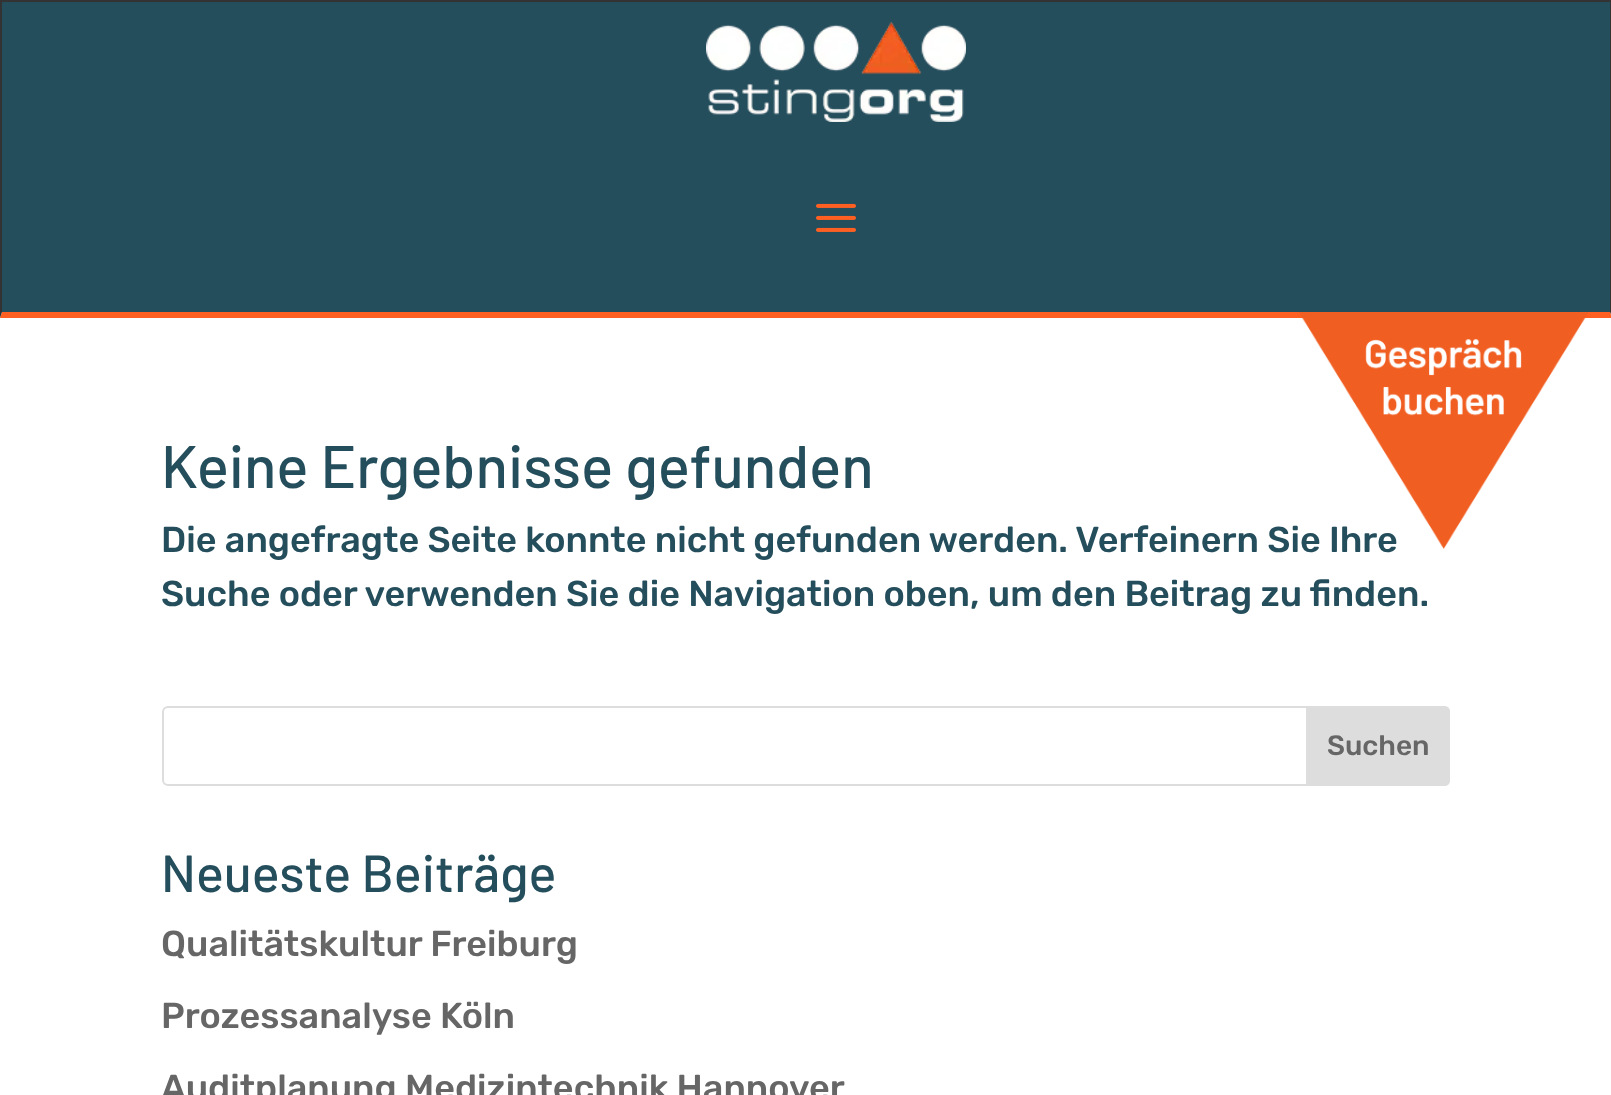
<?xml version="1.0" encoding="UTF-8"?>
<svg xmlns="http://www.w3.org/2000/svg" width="1611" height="1095">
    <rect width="100%" height="100%" fill="#FFFFFF"/>
    <rect x="2" y="2" width="1608" height="310" fill="#254E5D"/>
    <rect x="0" y="0" width="1611" height="2" fill="#333333"/>
    <path d="M 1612 0 V 318 L 1610 312 V 2 Z" fill="#333333"/>
    <path d="M 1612 318 H 0 L 2 312 H 1610 Z" fill="#FF6021"/>
    <path d="M 0 318 V 0 L 2 2 V 312 Z" fill="#333333"/>
    <image x="706" y="22" width="260" height="100" href="img_01.png"/>
    <image x="816" y="203" width="40" height="29" href="img_02.png"/>
    <text x="161" y="552" font-family="Rubik" font-size="36" font-weight="300" fill="#254E5D">Die angefragte Seite konnte nicht gefunden werden. Verfeinern Sie Ihre</text>
    <image x="1299" y="312" width="290" height="237" href="img_03.png"/>
    <text x="161" y="488" font-family="Barlow" font-size="60" font-weight="500" fill="#254E5D">Keine Ergebnisse gefunden</text>
    <text x="161" y="606" font-family="Rubik" font-size="36" font-weight="300" fill="#254E5D">Suche oder verwenden Sie die Navigation oben, um den Beitrag zu finden.</text>
    <rect x="163" y="707" width="1286" height="78" rx="5" fill="none" stroke="#DDDDDD" stroke-width="2"/>
    <path d="M 1307 707 H 1444 C 1447 707 1449 709 1449 712 V 780 C 1449 783 1447 785 1444 785 H 1307 Z" fill="#DDDDDD" stroke="#DDDDDD" stroke-width="2"/>
    <text x="1327" y="755" font-family="Rubik" font-size="28" font-weight="300" fill="#666666">Suchen</text>
    <text x="161" y="892" font-family="Barlow" font-size="52" font-weight="500" fill="#254E5D">Neueste Beiträge</text>
    <text x="161" y="956" font-family="Rubik" font-size="36" font-weight="300" fill="#666666">Qualitätskultur Freiburg</text>
    <text x="161" y="1028" font-family="Rubik" font-size="36" font-weight="300" fill="#666666">Prozessanalyse Köln</text>
    <text x="161" y="1100" font-family="Rubik" font-size="36" font-weight="300" fill="#666666">Auditplanung Medizintechnik Hannover</text>
</svg>
